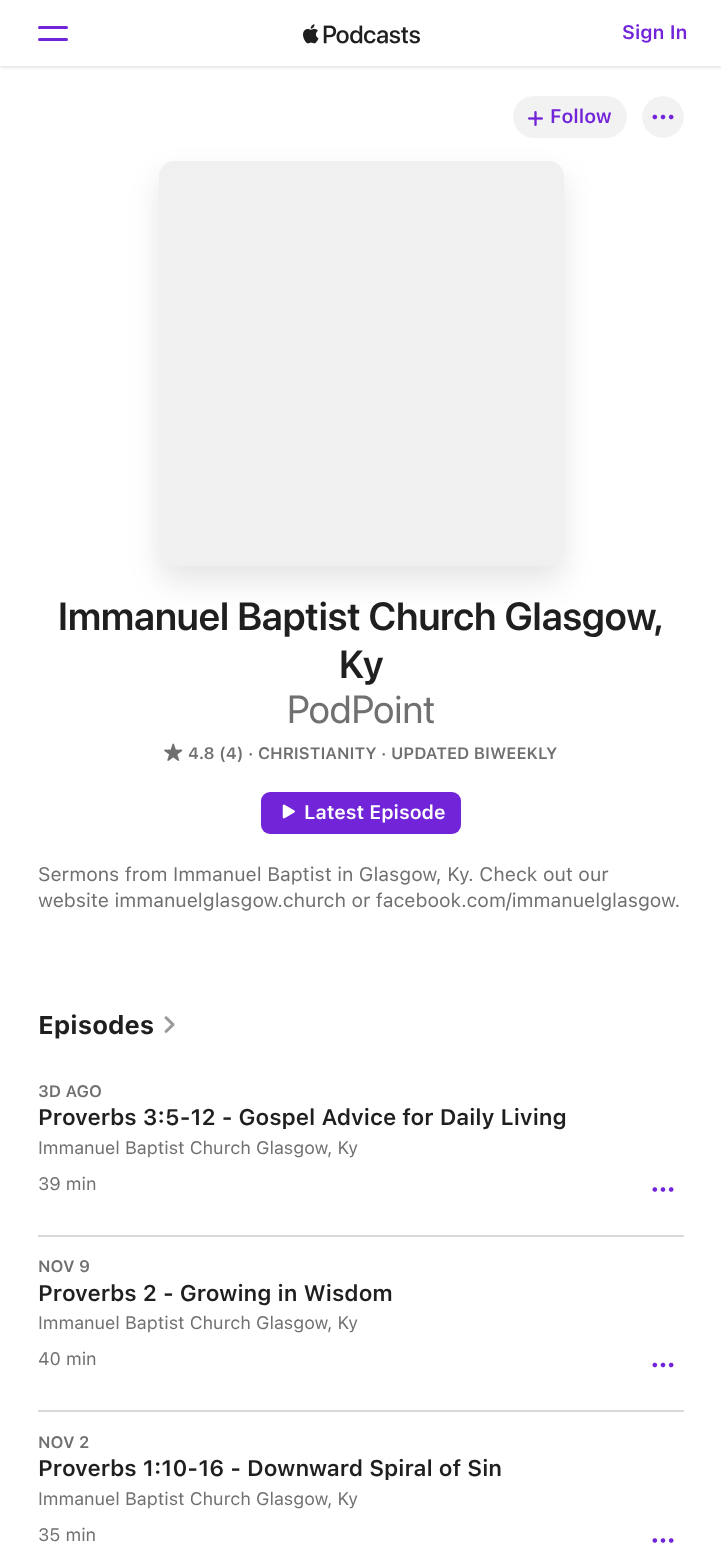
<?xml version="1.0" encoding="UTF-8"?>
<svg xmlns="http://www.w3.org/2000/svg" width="721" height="1554">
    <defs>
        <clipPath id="clip1"><rect x="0" y="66" width="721" height="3"/></clipPath>
        <filter id="blur1" x="-50%" y="-200%" width="200%" height="500%"><feGaussianBlur stdDeviation="1.5"/></filter>
        <filter id="blur2" x="-50%" y="-200%" width="200%" height="500%"><feGaussianBlur stdDeviation="15"/></filter>
    </defs>
    <rect width="100%" height="100%" fill="#FFFFFF"/>
    <g clip-path="url(#clip1)">
        <rect x="0" y="2" width="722" height="66" fill="#000000" fill-opacity="0.1" filter="url(#blur1)"/>
    </g>
    <rect x="38" y="26" width="30" height="3" rx="1.5" fill="#7224D8"/>
    <rect x="38" y="38" width="30" height="3" rx="1.5" fill="#7224D8"/>
    <image x="303" y="24" width="117" height="20" href="img_01.png"/>
    <text x="622" y="39" font-family="SF" font-size="19.5" font-weight="600" fill="#7224D8">Sign In</text>
    <rect x="513" y="96" width="114" height="42" rx="21" fill="#F2F2F2"/>
    <image x="528" y="111" width="15" height="15" href="img_02.png"/>
    <text x="550" y="123" font-family="SF" font-size="19.5" font-weight="600" fill="#7224D8">Follow</text>
    <image x="642" y="96" width="42" height="42" href="img_03.png"/>
    <rect x="159" y="176" width="405" height="405" rx="15" fill="#000000" fill-opacity="0.1" filter="url(#blur2)"/>
    <rect x="159" y="161" width="405" height="405" rx="15" fill="#FDFDFD"/>
    <path d="M 174 161 H 549 C 557 161 564 168 564 176 V 551 C 564 559 557 566 549 566 H 174 C 166 566 159 559 159 551 V 176 C 159 168 166 161 174 161 Z" fill="#808080" fill-opacity="0.1"/>
    <text x="58" y="630" font-family="'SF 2'" font-size="39" font-weight="600" fill="#1F1F1F">Immanuel Baptist Church Glasgow,</text>
    <text x="339" y="678" font-family="'SF 2'" font-size="39" font-weight="600" fill="#1F1F1F">Ky</text>
    <text x="287" y="723" font-family="SF" font-size="39" fill="#707070">PodPoint</text>
    <image x="164" y="743" width="19" height="18" href="img_04.png"/>
    <text x="188" y="759" font-family="SF" font-size="16.5" font-weight="600" fill="#707070">4.8 (4) · CHRISTIANITY · UPDATED BIWEEKLY</text>
    <rect x="261" y="792" width="200" height="42" rx="9" fill="#7224D8"/>
    <image x="282" y="804" width="13" height="15" href="img_05.png"/>
    <text x="304" y="819" font-family="SF" font-size="19.5" font-weight="600" fill="#FFFFFF">Latest Episode</text>
    <text font-family="'SF 2'" font-size="19.5" fill="#707070">
        <tspan x="38" y="881">Sermons from Immanuel Baptist in Glasgow, Ky. Check out our</tspan>
        <tspan x="38" y="907">website immanuelglasgow.church or facebook.com/immanuelglasgow.</tspan>
    </text>
    <text x="38" y="1034" font-family="SF" font-size="25.5" font-weight="700" fill="#1F1F1F">Episodes</text>
    <image x="164" y="1016" width="11" height="17" href="img_06.png"/>
    <rect x="38" y="1235" width="646" height="2" fill="#D9D9D9"/>
    <text x="38" y="1097" font-family="SF" font-size="16.5" font-weight="600" fill="#707070">3D AGO</text>
    <text x="38" y="1125" font-family="SF" font-size="22.5" font-weight="600" fill="#1F1F1F">Proverbs 3:5-12 - Gospel Advice for Daily Living</text>
    <text x="38" y="1154" font-family="'SF 2'" font-size="18" fill="#707070">Immanuel Baptist Church Glasgow, Ky</text>
    <text x="38" y="1190" font-family="'SF 2'" font-size="18" fill="#707070">39 min</text>
    <image x="652" y="1187" width="22" height="5" href="img_07.png"/>
    <rect x="38" y="1410" width="646" height="2" fill="#D9D9D9"/>
    <text x="38" y="1272" font-family="SF" font-size="16.5" font-weight="600" fill="#707070">NOV 9</text>
    <text x="38" y="1301" font-family="SF" font-size="22.5" font-weight="600" fill="#1F1F1F">Proverbs 2 - Growing in Wisdom</text>
    <text x="38" y="1329" font-family="'SF 2'" font-size="18" fill="#707070">Immanuel Baptist Church Glasgow, Ky</text>
    <text x="38" y="1365" font-family="'SF 2'" font-size="18" fill="#707070">40 min</text>
    <image x="652" y="1362" width="22" height="6" href="img_08.png"/>
    <text x="38" y="1448" font-family="SF" font-size="16.5" font-weight="600" fill="#707070">NOV 2</text>
    <text x="38" y="1476" font-family="SF" font-size="22.5" font-weight="600" fill="#1F1F1F">Proverbs 1:10-16 - Downward Spiral of Sin</text>
    <text x="38" y="1505" font-family="'SF 2'" font-size="18" fill="#707070">Immanuel Baptist Church Glasgow, Ky</text>
    <text x="38" y="1541" font-family="'SF 2'" font-size="18" fill="#707070">35 min</text>
    <image x="652" y="1538" width="22" height="5" href="img_07.png"/>
</svg>
